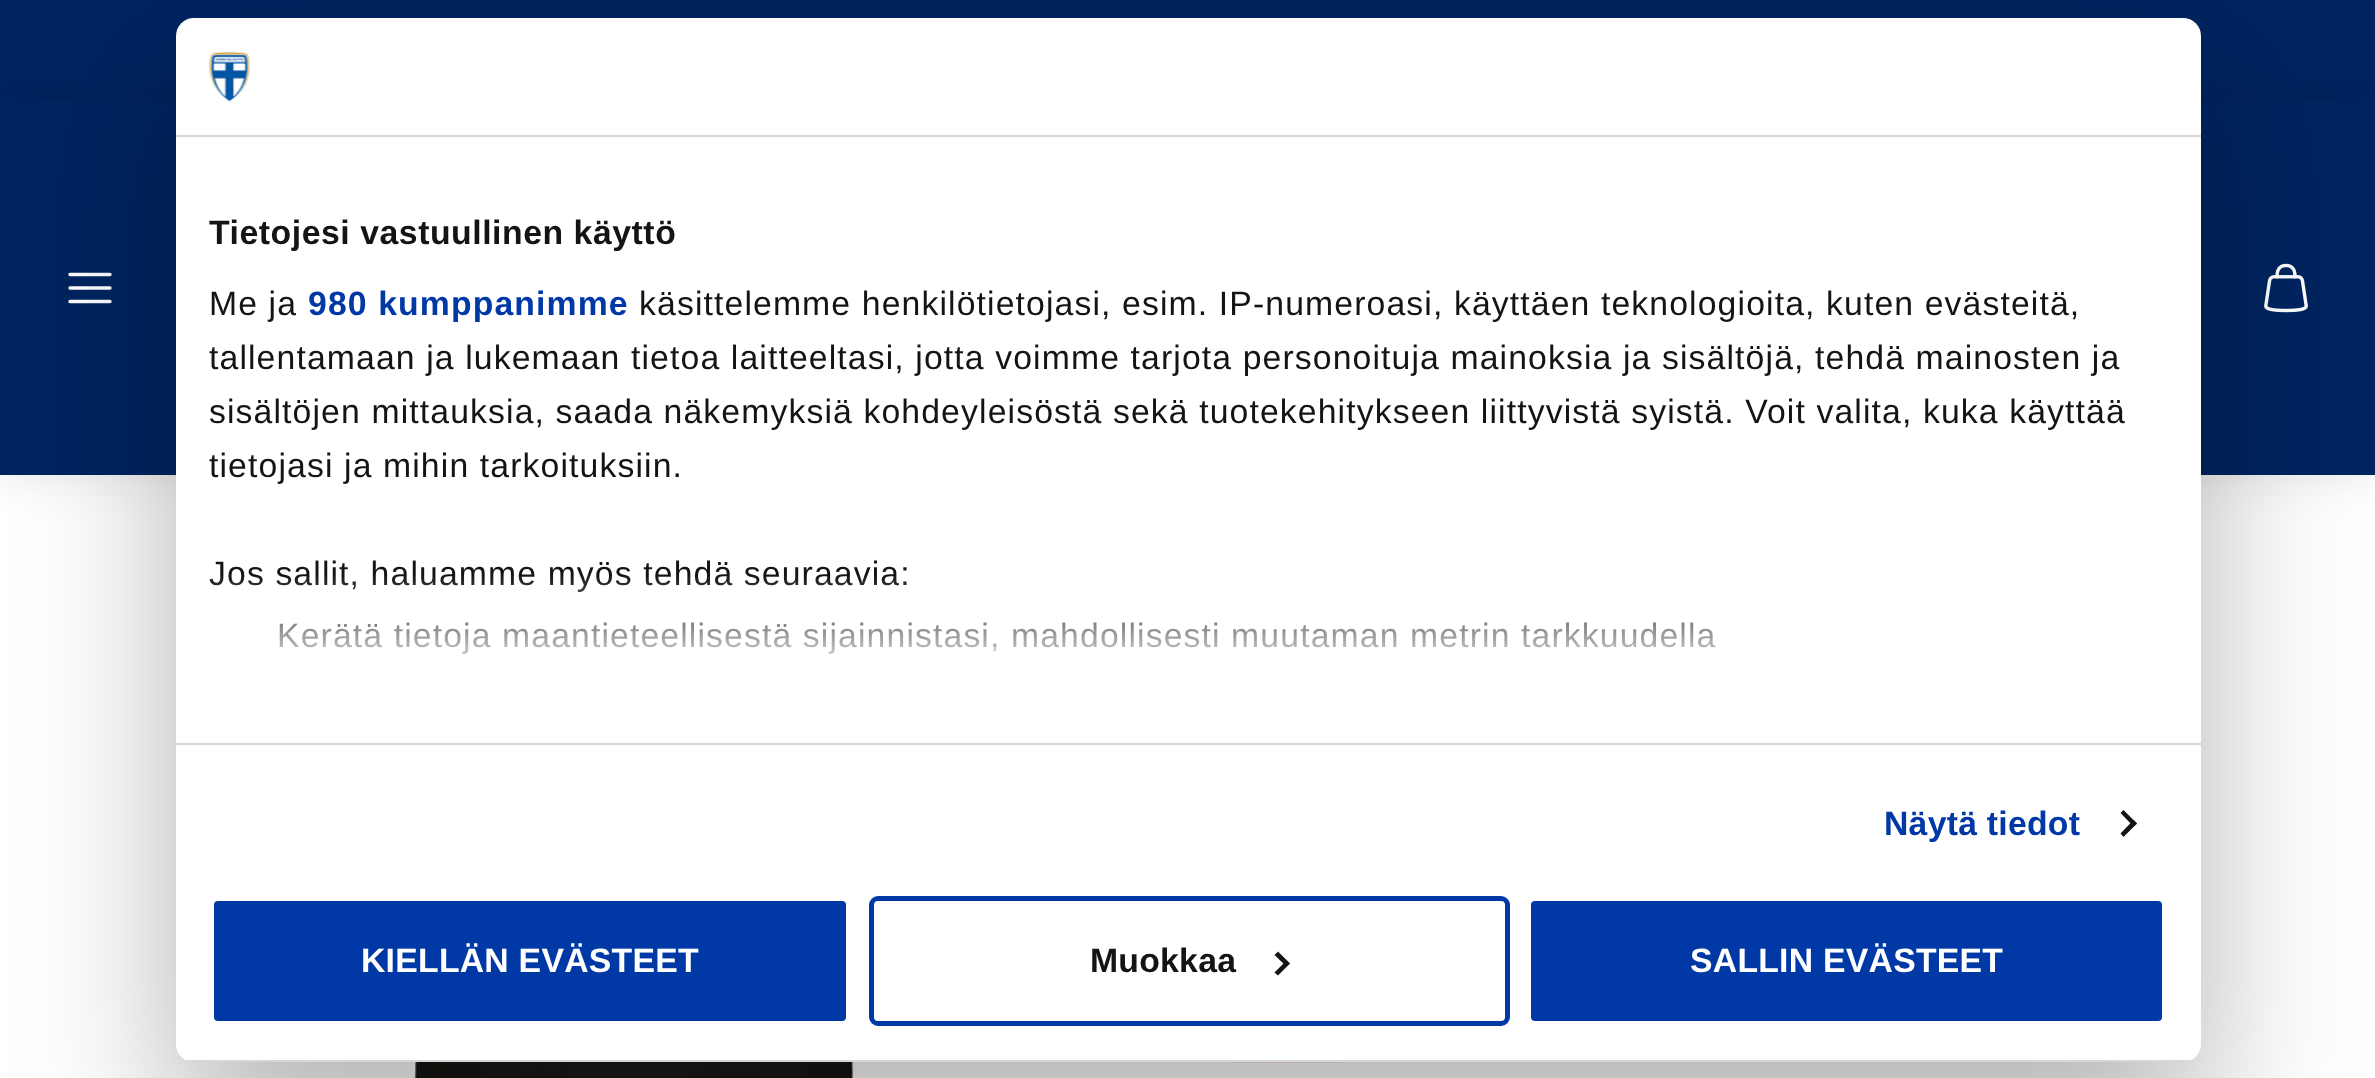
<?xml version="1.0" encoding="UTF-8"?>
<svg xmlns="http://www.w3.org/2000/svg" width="2375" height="1078">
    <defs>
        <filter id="blur1" x="-50%" y="-200%" width="200%" height="500%"><feGaussianBlur stdDeviation="22.5"/></filter>
        <filter id="blur2" x="-50%" y="-200%" width="200%" height="500%"><feGaussianBlur stdDeviation="76.5"/></filter>
        <linearGradient id="g1" gradientUnits="userSpaceOnUse" x1="1173" y1="743" x2="1173" y2="574"><stop offset="0" stop-color="#FFFFFF"/><stop offset="0.5" stop-color="#FFFFFF" stop-opacity="0.8"/><stop offset="1" stop-color="#FFFFFF" stop-opacity="0"/></linearGradient>
        <clipPath id="clip1"><rect x="176" y="18" width="2025" height="1044" rx="18"/></clipPath>
    </defs>
    <rect width="100%" height="100%" fill="#FFFFFF"/>
    <rect x="0" y="0" width="2375" height="101" fill="#002460"/>
    <rect x="0" y="101" width="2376" height="374" fill="#000000" fill-opacity="0.1" filter="url(#blur1)"/>
    <rect x="0" y="101" width="2375" height="374" fill="#002460"/>
    <path d="M 70 288 H 110 M 70 274.5 H 110 M 70 301.5 H 110" fill="none" stroke="#FFFFFF" stroke-width="3.4" stroke-linecap="round" stroke-linejoin="round"/>
    <image x="2264" y="263" width="44" height="50" href="img_01.png"/>
    <image x="291" y="1062" width="689" height="16" href="img_03.png"/>
    <image x="1219" y="1062" width="136" height="1" href="img_04.png"/>
    <rect x="176" y="90" width="2025" height="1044" rx="18" fill="#000000" fill-opacity="0.3" filter="url(#blur2)"/>
    <rect x="176" y="18" width="2025" height="1044" rx="18" fill="#FFFFFF"/>
    <rect x="176" y="135" width="2025" height="2" fill="#D6D6D6"/>
    <image x="209" y="51" width="41" height="51" href="img_02.png"/>
    <rect x="176" y="743" width="2025" height="2" fill="#D6D6D6"/>
    <text x="209" y="244" font-family="Liberation Sans" font-size="33.75" font-weight="700" letter-spacing="0.55" fill="#141414">Tietojesi vastuullinen käyttö</text>
    <text x="209" y="315" font-family="Liberation Sans" font-size="33.75" letter-spacing="1.12" fill="#141414">Me ja</text>
    <text x="308" y="315" font-family="Liberation Sans" font-size="33.75" font-weight="700" letter-spacing="1.12" fill="#0039A6">980 kumppanimme</text>
    <text x="639" y="315" font-family="Liberation Sans" font-size="33.75" letter-spacing="1.12" fill="#141414">käsittelemme henkilötietojasi, esim. IP-numeroasi, käyttäen teknologioita, kuten evästeitä,</text>
    <text font-family="Liberation Sans" font-size="33.75" letter-spacing="1.12" fill="#141414">
        <tspan x="209" y="369">tallentamaan ja lukemaan tietoa laitteeltasi, jotta voimme tarjota personoituja mainoksia ja sisältöjä, tehdä mainosten ja</tspan>
        <tspan x="209" y="423">sisältöjen mittauksia, saada näkemyksiä kohdeyleisöstä sekä tuotekehitykseen liittyvistä syistä. Voit valita, kuka käyttää</tspan>
        <tspan x="209" y="477">tietojasi ja mihin tarkoituksiin.</tspan>
    </text>
    <text x="209" y="585" font-family="Liberation Sans" font-size="33.75" letter-spacing="1.12" fill="#141414">Jos sallit, haluamme myös tehdä seuraavia:</text>
    <text x="277" y="647" font-family="Liberation Sans" font-size="33.75" letter-spacing="1.12" fill="#141414">Kerätä tietoja maantieteellisestä sijainnistasi, mahdollisesti muutaman metrin tarkkuudella</text>
    <rect x="210" y="576" width="1506" height="78" fill="url(#g1)"/>
    <text x="1884" y="835" font-family="Liberation Sans" font-size="33.75" font-weight="700" letter-spacing="0.25" fill="#0039A6">Näytä tiedot</text>
    <path d="M 2123.5 810 L 2137 823.5 L 2133.5 826.5 L 2120.5 813 Z" fill="#141414"/>
    <path d="M 2133.5 820 L 2137 823.5 L 2123.5 837 L 2120.5 833.5 Z" fill="#141414"/>
    <g clip-path="url(#clip1)">
        <rect x="186" y="1060" width="2005" height="2" fill="#D6D6D6"/>
    </g>
    <rect x="211.5" y="898.5" width="637" height="125" rx="6.5" fill="#0039A6" stroke="#FFFFFF" stroke-width="5"/>
    <text x="361" y="972" font-family="Liberation Sans" font-size="33.75" font-weight="700" letter-spacing="0.25" fill="#FFFFFF">KIELLÄN EVÄSTEET</text>
    <rect x="871.5" y="898.5" width="636" height="125" rx="6.5" fill="none" stroke="#0039A6" stroke-width="5"/>
    <text x="1090" y="972" font-family="Liberation Sans" font-size="33.75" font-weight="700" letter-spacing="0.25" fill="#141414">Muokkaa</text>
    <path d="M 1278 951.5 L 1290 963.5 L 1286.5 966.5 L 1274.5 955 Z" fill="#141414"/>
    <path d="M 1286.5 960.5 L 1290 963.5 L 1278 975.5 L 1274.5 972.5 Z" fill="#141414"/>
    <rect x="1528.5" y="898.5" width="636" height="125" rx="6.5" fill="#0039A6" stroke="#FFFFFF" stroke-width="5"/>
    <text x="1690" y="972" font-family="Liberation Sans" font-size="33.75" font-weight="700" letter-spacing="0.25" fill="#FFFFFF">SALLIN EVÄSTEET</text>
</svg>
